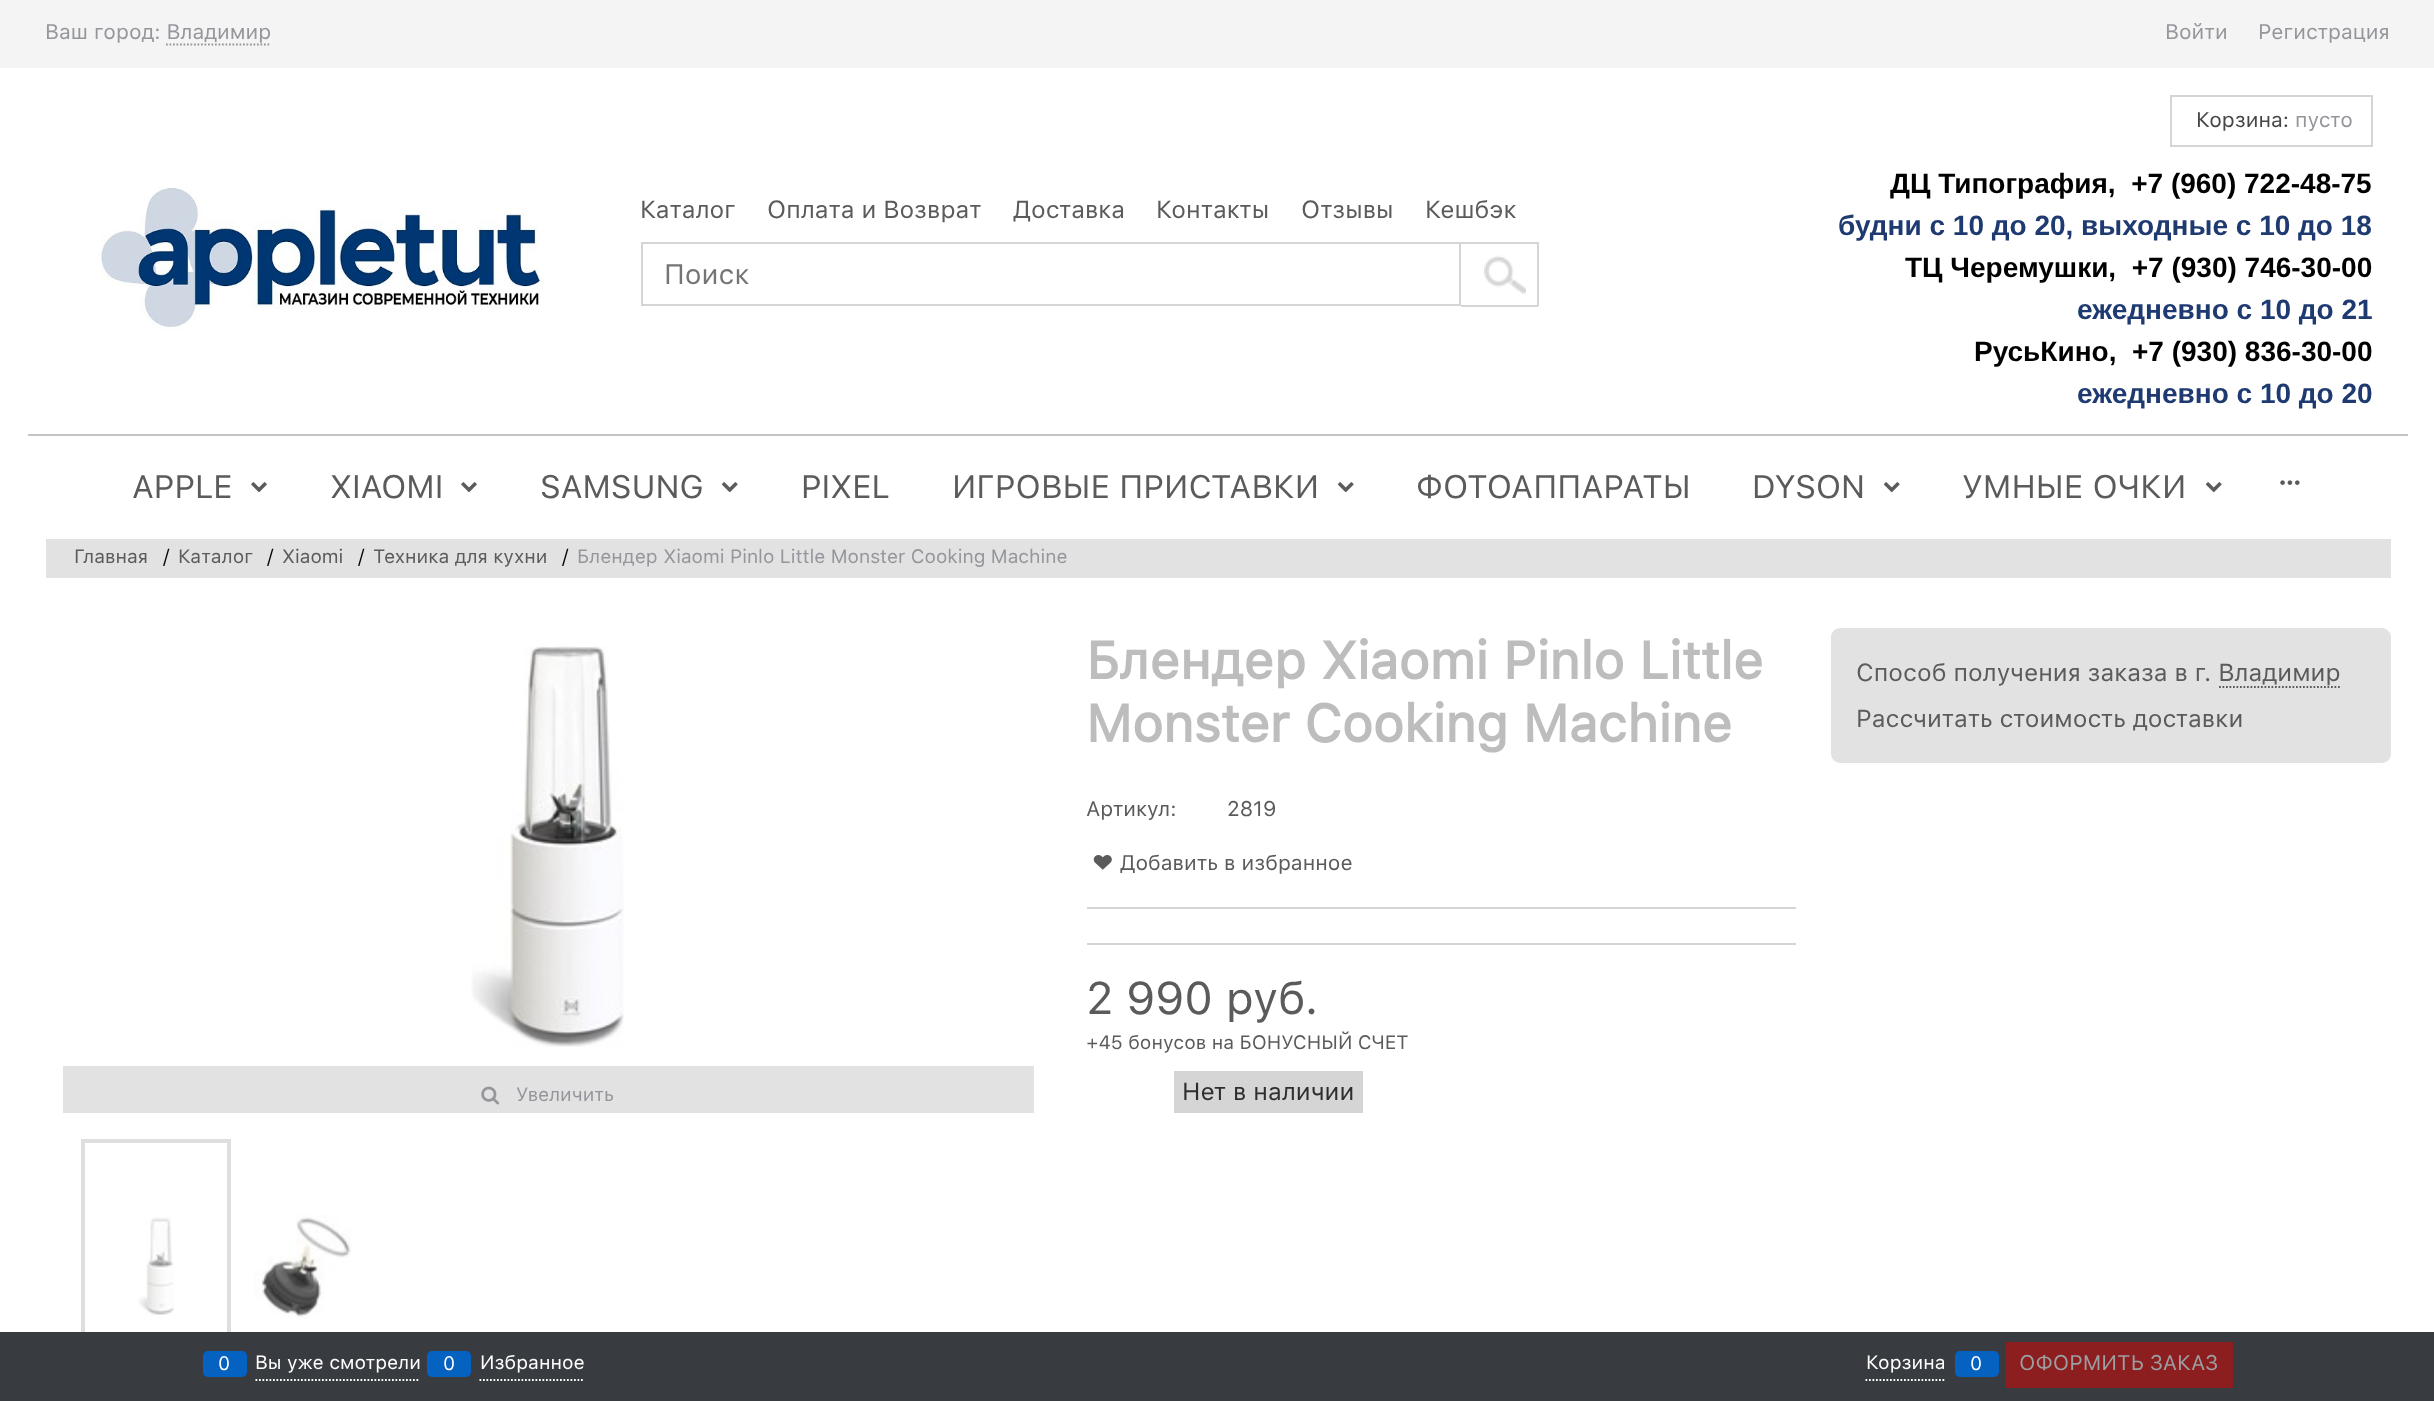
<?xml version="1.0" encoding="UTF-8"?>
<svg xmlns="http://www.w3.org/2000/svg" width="2434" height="1401">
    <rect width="100%" height="100%" fill="#FFFFFF"/>
    <rect x="0" y="0" width="2434" height="68" fill="#F4F4F4"/>
    <text x="45" y="39" font-family="SF Pro Text" font-size="21" fill="#94969B">Ваш город: Владимир</text>
    <path d="M 166 44.5 H 271" fill="none" stroke="#94969B" stroke-width="1.8" stroke-dasharray="1.75 1.75"/>
    <text x="2165" y="39" font-family="SF Pro Text" font-size="21" fill="#94969B">Войти</text>
    <text x="2258" y="39" font-family="SF Pro Text" font-size="21" fill="#94969B">Регистрация</text>
    <rect x="28" y="434" width="2380" height="2" fill="#C4C4C4"/>
    <image x="101" y="187" width="448" height="144" href="img_01.png"/>
    <text x="640" y="218" font-family="SF Pro Text" font-size="24.5" fill="#5B5B5B">Каталог</text>
    <text x="767" y="218" font-family="SF Pro Text" font-size="24.5" fill="#5B5B5B">Оплата и Возврат</text>
    <text x="1013" y="218" font-family="SF Pro Text" font-size="24.5" fill="#5B5B5B">Доставка</text>
    <text x="1156" y="218" font-family="SF Pro Text" font-size="24.5" fill="#5B5B5B">Контакты</text>
    <text x="1301" y="218" font-family="SF Pro Text" font-size="24.5" fill="#5B5B5B">Отзывы</text>
    <text x="1425" y="218" font-family="SF Pro Text" font-size="24.5" fill="#5B5B5B">Кешбэк</text>
    <rect x="642" y="243" width="818" height="62" fill="none" stroke="#D5D5D5" stroke-width="2"/>
    <text x="664" y="284" font-family="SF Pro Text" font-size="28" fill="#757575">Поиск</text>
    <image x="1484" y="255" width="42" height="39" href="img_02.png"/>
    <rect x="1461" y="242" width="77" height="2" fill="#D5D5D5"/>
    <rect x="1537" y="242" width="2" height="64" fill="#D5D5D5"/>
    <rect x="1461" y="305" width="77" height="2" fill="#D5D5D5"/>
    <rect x="2171" y="96" width="201" height="50" fill="none" stroke="#D5D5D5" stroke-width="2"/>
    <text x="2196" y="127" font-family="SF Pro Text" font-size="21" fill="#464646">Корзина:</text>
    <text x="2295" y="127" font-family="SF Pro Text" font-size="21" fill="#94969B">пусто</text>
    <text x="1890" y="193" font-family="Liberation Sans" font-size="28" font-weight="700" fill="#000000" xml:space="preserve">ДЦ Типография,  +7 (960) 722-48-75</text>
    <text x="1838" y="235" font-family="Liberation Sans" font-size="28" font-weight="700" fill="#1E3A71">будни с 10 до 20, выходные с 10 до 18</text>
    <text x="1905" y="277" font-family="Liberation Sans" font-size="28" font-weight="700" fill="#000000" xml:space="preserve">ТЦ Черемушки,  +7 (930) 746-30-00</text>
    <text x="2077" y="319" font-family="Liberation Sans" font-size="28" font-weight="700" fill="#1E3A71">ежедневно с 10 до 21</text>
    <text x="1974" y="361" font-family="Liberation Sans" font-size="28" font-weight="700" fill="#000000" xml:space="preserve">РусьКино,  +7 (930) 836-30-00</text>
    <text x="2077" y="403" font-family="Liberation Sans" font-size="28" font-weight="700" fill="#1E3A71">ежедневно с 10 до 20</text>
    <text x="132" y="498" font-family="SF Pro Text" font-size="32.4" fill="#5B5B5B">APPLE</text>
    <image x="251" y="482" width="16" height="11" href="img_03.png"/>
    <text x="330" y="498" font-family="SF Pro Text" font-size="32.4" fill="#5B5B5B">XIAOMI</text>
    <image x="461" y="482" width="16" height="11" href="img_03.png"/>
    <text x="540" y="498" font-family="SF Pro Text" font-size="32.4" fill="#5B5B5B">SAMSUNG</text>
    <image x="721" y="482" width="17" height="11" href="img_04.png"/>
    <text x="801" y="498" font-family="SF Pro Text" font-size="32.4" fill="#5B5B5B">PIXEL</text>
    <text x="952" y="498" font-family="SF Pro Text" font-size="32.4" fill="#5B5B5B">ИГРОВЫЕ ПРИСТАВКИ</text>
    <image x="1337" y="482" width="17" height="11" href="img_04.png"/>
    <text x="1416" y="498" font-family="SF Pro Text" font-size="32.4" fill="#5B5B5B">ФОТОАППАРАТЫ</text>
    <text x="1752" y="498" font-family="SF Pro Text" font-size="32.4" fill="#5B5B5B">DYSON</text>
    <image x="1883" y="482" width="17" height="11" href="img_04.png"/>
    <text x="1962" y="498" font-family="SF Pro Text" font-size="32.4" fill="#5B5B5B">УМНЫЕ ОЧКИ</text>
    <image x="2205" y="482" width="17" height="11" href="img_04.png"/>
    <image x="2280" y="480" width="20" height="5" href="img_05.png"/>
    <rect x="46" y="539" width="2345" height="39" fill="#E2E2E2"/>
    <text x="74" y="563" font-family="SF Pro Text" font-size="19.25" fill="#5B5B5B">Главная</text>
    <text x="163" y="563" font-family="SF Pro Text" font-size="19.25" fill="#000000">/</text>
    <text x="178" y="563" font-family="SF Pro Text" font-size="19.25" fill="#5B5B5B">Каталог</text>
    <text x="267" y="563" font-family="SF Pro Text" font-size="19.25" fill="#000000">/</text>
    <text x="282" y="563" font-family="SF Pro Text" font-size="19.25" fill="#5B5B5B">Xiaomi</text>
    <text x="358" y="563" font-family="SF Pro Text" font-size="19.25" fill="#000000">/</text>
    <text x="373" y="563" font-family="SF Pro Text" font-size="19.25" fill="#5B5B5B">Техника для кухни</text>
    <text x="562" y="563" font-family="SF Pro Text" font-size="19.25" fill="#000000">/</text>
    <text x="577" y="563" font-family="SF Pro Text" font-size="19.25" fill="#94969B">Блендер Xiaomi Pinlo Little Monster Cooking Machine</text>
    <image x="471" y="646" width="153" height="401" href="img_06.png"/>
    <rect x="63" y="1066" width="971" height="47" fill="#E2E2E2"/>
    <image x="481" y="1086" width="19" height="19" href="img_07.png"/>
    <text x="516" y="1101" font-family="SF Pro Text" font-size="19.25" fill="#94969B">Увеличить</text>
    <rect x="83" y="1141" width="146" height="252" fill="none" stroke="#DEDEDE" stroke-width="4"/>
    <image x="138" y="1217" width="36" height="98" href="img_08.png"/>
    <image x="254" y="1215" width="97" height="104" href="img_09.png"/>
    <text font-family="SF Pro Text" font-size="52.5" font-weight="700" fill="#BDBDBD">
        <tspan x="1086" y="679">Блендер Xiaomi Pinlo Little</tspan>
        <tspan x="1086" y="742">Monster Cooking Machine</tspan>
    </text>
    <text x="1086" y="816" font-family="SF Pro Text" font-size="21" fill="#5B5B5B">Артикул:</text>
    <text x="1227" y="816" font-family="SF Pro Text" font-size="21" fill="#5B5B5B">2819</text>
    <rect x="1087" y="907" width="709" height="2" fill="#D5D5D5"/>
    <image x="1093" y="855" width="19" height="15" href="img_10.png"/>
    <text x="1120" y="870" font-family="SF Pro Text" font-size="21" fill="#5B5B5B">Добавить в избранное</text>
    <rect x="1087" y="943" width="709" height="2" fill="#D5D5D5"/>
    <text x="1086" y="1014" font-family="SF Pro Text" font-size="45.5" fill="#5B5B5B">2 990 руб.</text>
    <text x="1086" y="1049" font-family="SF Pro Text" font-size="19.25" fill="#5B5B5B">+45 бонусов на БОНУСНЫЙ СЧЕТ</text>
    <rect x="1174" y="1071" width="189" height="42" fill="#D5D5D5"/>
    <text x="1182" y="1100" font-family="SF Pro Text" font-size="24.5" fill="#2E2E2E">Нет в наличии</text>
    <rect x="1831" y="628" width="560" height="135" rx="9" fill="#E2E2E2"/>
    <text x="1856" y="681" font-family="SF Pro Text" font-size="24.5" fill="#5B5B5B">Способ получения заказа в г. Владимир</text>
    <path d="M 2219 687 H 2340" fill="none" stroke="#5B5B5B" stroke-width="1.8" stroke-dasharray="1.75 1.75"/>
    <text x="1856" y="727" font-family="SF Pro Text" font-size="24.5" fill="#5B5B5B">Рассчитать стоимость доставки</text>
    <rect x="0" y="1332" width="2434" height="69" fill="#383C40"/>
    <path d="M 255.5 1380 H 420" fill="none" stroke="#FFFFFF" stroke-width="1.8" stroke-dasharray="1.75 1.75"/>
    <rect x="203" y="1351" width="44" height="26" rx="5" fill="#0662C1"/>
    <text x="218" y="1370" font-family="SF Pro Text" font-size="19.25" fill="#FFFFFF">0</text>
    <text x="255" y="1369" font-family="SF Pro Text" font-size="19.25" fill="#FFFFFF">Вы уже смотрели</text>
    <path d="M 479.5 1380 H 584.5" fill="none" stroke="#FFFFFF" stroke-width="1.8" stroke-dasharray="1.75 1.75"/>
    <rect x="427" y="1351" width="44" height="26" rx="5" fill="#0662C1"/>
    <text x="443" y="1370" font-family="SF Pro Text" font-size="19.25" fill="#FFFFFF">0</text>
    <text x="480" y="1369" font-family="SF Pro Text" font-size="19.25" fill="#FFFFFF">Избранное</text>
    <path d="M 1865.5 1380 H 1946" fill="none" stroke="#FFFFFF" stroke-width="1.8" stroke-dasharray="1.75 1.75"/>
    <text x="1866" y="1369" font-family="SF Pro Text" font-size="19.25" fill="#FFFFFF">Корзина</text>
    <rect x="1955" y="1351" width="44" height="26" rx="5" fill="#0662C1"/>
    <text x="1970" y="1370" font-family="SF Pro Text" font-size="19.25" fill="#FFFFFF">0</text>
    <rect x="2006" y="1342" width="227" height="46" fill="#8D1E20"/>
    <text x="2019" y="1370" font-family="SF Pro Text" font-size="21" fill="#9C9EA0">ОФОРМИТЬ ЗАКАЗ</text>
</svg>
